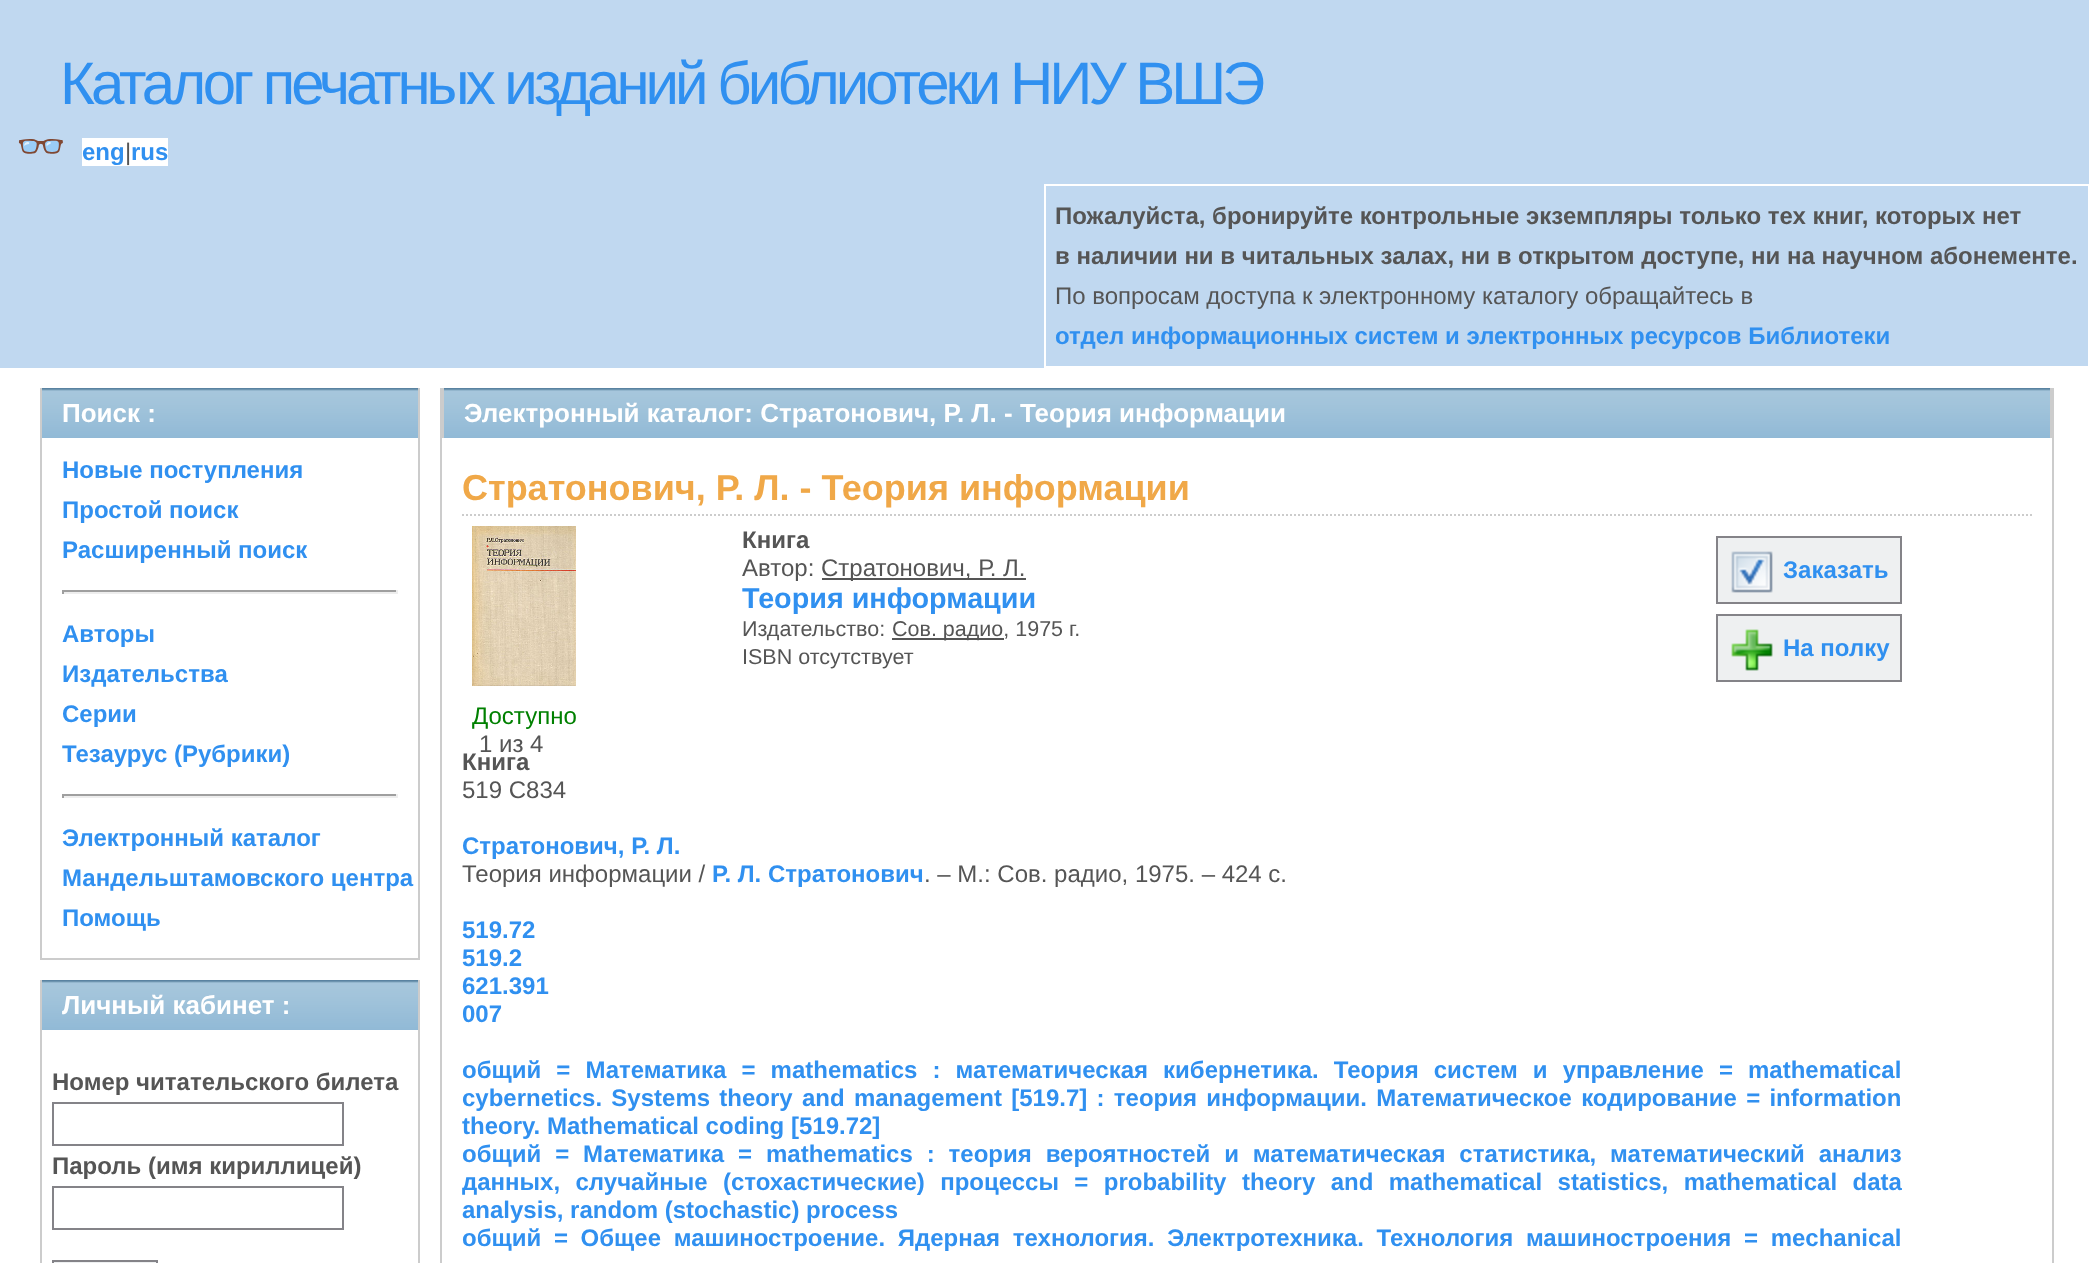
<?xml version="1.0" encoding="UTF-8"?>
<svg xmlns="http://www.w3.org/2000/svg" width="2089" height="1263">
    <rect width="100%" height="100%" fill="#FFFFFF"/>
    <rect x="0" y="0" width="2089" height="368" fill="#C0D8F0"/>
    <text x="60" y="104" font-family="Liberation Sans" font-size="60" letter-spacing="-4" fill="#3090F0">Каталог печатных изданий библиотеки НИУ ВШЭ</text>
    <text x="16" y="160" font-family="Noto Color Emoji" font-size="40" font-weight="700" fill="#3090F0">👓</text>
    <rect x="82" y="138" width="86" height="28" fill="#FFFFFF"/>
    <text x="82" y="160" font-family="Liberation Sans" font-size="24" font-weight="700" fill="#3090F0">eng</text>
    <text x="125" y="160" font-family="Liberation Sans" font-size="24" fill="#555555">|</text>
    <text x="131" y="160" font-family="Liberation Sans" font-size="24" font-weight="700" fill="#3090F0">rus</text>
    <rect x="1045" y="185" width="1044" height="182" fill="none" stroke="#FFFFFF" stroke-width="2"/>
    <text font-family="Liberation Sans" font-size="24" font-weight="700" fill="#555555">
        <tspan x="1055" y="224">Пожалуйста, бронируйте контрольные экземпляры только тех книг, которых нет</tspan>
        <tspan x="1055" y="264">в наличии ни в читальных залах, ни в открытом доступе, ни на научном абонементе.</tspan>
    </text>
    <text x="1055" y="304" font-family="Liberation Sans" font-size="24" fill="#555555">По вопросам доступа к электронному каталогу обращайтесь в</text>
    <text x="1055" y="344" font-family="Liberation Sans" font-size="24" font-weight="700" fill="#3090F0">отдел информационных систем и электронных ресурсов Библиотеки</text>
    <image x="42" y="388" width="376" height="50" href="img_01.png"/>
    <rect x="418" y="388" width="2" height="572" fill="#CCCCCC"/>
    <rect x="40" y="388" width="2" height="50" fill="#CCCCCC"/>
    <text x="62" y="422" font-family="Liberation Sans" font-size="26" font-weight="700" fill="#FFFFFF">Поиск :</text>
    <rect x="40" y="958" width="380" height="2" fill="#CCCCCC"/>
    <rect x="40" y="438" width="2" height="522" fill="#CCCCCC"/>
    <text font-family="Liberation Sans" font-size="24" font-weight="700" fill="#3090F0">
        <tspan x="62" y="478">Новые поступления</tspan>
        <tspan x="62" y="518">Простой поиск</tspan>
        <tspan x="62" y="558">Расширенный поиск</tspan>
    </text>
    <rect x="62" y="590" width="336" height="2" fill="#9F9F9F"/>
    <rect x="396" y="590" width="2" height="4" fill="#EEEEEE"/>
    <rect x="62" y="592" width="336" height="2" fill="#EEEEEE"/>
    <rect x="62" y="590" width="2" height="4" fill="#9F9F9F"/>
    <text font-family="Liberation Sans" font-size="24" font-weight="700" fill="#3090F0">
        <tspan x="62" y="642">Авторы</tspan>
        <tspan x="62" y="682">Издательства</tspan>
        <tspan x="62" y="722">Серии</tspan>
        <tspan x="62" y="762">Тезаурус (Рубрики)</tspan>
    </text>
    <rect x="62" y="794" width="336" height="2" fill="#9F9F9F"/>
    <rect x="396" y="794" width="2" height="4" fill="#EEEEEE"/>
    <rect x="62" y="796" width="336" height="2" fill="#EEEEEE"/>
    <rect x="62" y="794" width="2" height="4" fill="#9F9F9F"/>
    <text font-family="Liberation Sans" font-size="24" font-weight="700" fill="#3090F0">
        <tspan x="62" y="846">Электронный каталог</tspan>
        <tspan x="62" y="886">Мандельштамовского центра</tspan>
        <tspan x="62" y="926">Помощь</tspan>
    </text>
    <image x="42" y="980" width="376" height="50" href="img_01.png"/>
    <rect x="418" y="980" width="2" height="283" fill="#CCCCCC"/>
    <rect x="40" y="980" width="2" height="283" fill="#CCCCCC"/>
    <text x="62" y="1014" font-family="Liberation Sans" font-size="26" font-weight="700" fill="#FFFFFF">Личный кабинет :</text>
    <text x="52" y="1090" font-family="Liberation Sans" font-size="24" font-weight="700" fill="#555555">Номер читательского билета</text>
    <rect x="53" y="1103" width="290" height="42" fill="none" stroke="#848388" stroke-width="2"/>
    <text x="52" y="1174" font-family="Liberation Sans" font-size="24" font-weight="700" fill="#555555">Пароль (имя кириллицей)</text>
    <rect x="53" y="1187" width="290" height="42" fill="none" stroke="#848388" stroke-width="2"/>
    <rect x="53" y="1261" width="104" height="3" fill="#EEF0F1" stroke="#848388" stroke-width="2"/>
    <rect x="2052" y="388" width="2" height="875" fill="#CCCCCC"/>
    <rect x="440" y="388" width="2" height="875" fill="#CCCCCC"/>
    <image x="444" y="388" width="1606" height="50" href="img_02.png"/>
    <rect x="2050" y="388" width="2" height="50" fill="#CCCCCC"/>
    <rect x="442" y="388" width="2" height="50" fill="#CCCCCC"/>
    <text x="464" y="422" font-family="Liberation Sans" font-size="26" font-weight="700" fill="#FFFFFF">Электронный каталог: Стратонович, Р. Л. - Теория информации</text>
    <path d="M 462 515 H 2032" fill="none" stroke="#CCCCCC" stroke-width="2" stroke-dasharray="2 2"/>
    <text x="462" y="500" font-family="Liberation Sans" font-size="36" font-weight="700" fill="#F0A848">Стратонович, Р. Л. - Теория информации</text>
    <text x="742" y="548" font-family="Liberation Sans" font-size="24" font-weight="700" fill="#555555">Книга</text>
    <text x="742" y="576" font-family="Liberation Sans" font-size="24" fill="#555555">Автор:</text>
    <rect x="822" y="578" width="204" height="2" fill="#555555"/>
    <text x="821" y="576" font-family="Liberation Sans" font-size="24" fill="#555555">Стратонович, Р. Л.</text>
    <text x="742" y="608" font-family="Liberation Sans" font-size="28.75" font-weight="700" fill="#3090F0">Теория информации</text>
    <text x="742" y="636" font-family="Liberation Sans" font-size="21.5" fill="#555555">Издательство:</text>
    <rect x="892" y="638" width="112" height="2" fill="#555555"/>
    <text x="892" y="636" font-family="Liberation Sans" font-size="21.5" fill="#555555">Сов. радио, 1975 г.</text>
    <text x="742" y="664" font-family="Liberation Sans" font-size="21.5" fill="#555555">ISBN отсутствует</text>
    <rect x="1717" y="537" width="184" height="66" fill="#EEF0F1" stroke="#848388" stroke-width="2"/>
    <image x="1731" y="551" width="42" height="42" href="img_03.png"/>
    <text x="1783" y="578" font-family="Liberation Sans" font-size="24" font-weight="700" fill="#3090F0">Заказать</text>
    <rect x="1717" y="615" width="184" height="66" fill="#EEF0F1" stroke="#848388" stroke-width="2"/>
    <image x="1731" y="629" width="42" height="42" href="img_04.png"/>
    <text x="1783" y="656" font-family="Liberation Sans" font-size="24" font-weight="700" fill="#3090F0">На полку</text>
    <image x="472" y="526" width="104" height="160" href="img_05.png"/>
    <text x="472" y="724" font-family="Liberation Sans" font-size="24" fill="#008000">Доступно</text>
    <text x="479" y="752" font-family="Liberation Sans" font-size="24" fill="#555555">1 из 4</text>
    <text x="462" y="770" font-family="Liberation Sans" font-size="24" font-weight="700" fill="#555555">Книга</text>
    <text x="462" y="798" font-family="Liberation Sans" font-size="24" fill="#555555">519 С834</text>
    <text x="462" y="854" font-family="Liberation Sans" font-size="24" font-weight="700" fill="#3090F0">Стратонович, Р. Л.</text>
    <text x="462" y="882" font-family="Liberation Sans" font-size="24" fill="#555555">Теория информации /</text>
    <text x="712" y="882" font-family="Liberation Sans" font-size="24" font-weight="700" fill="#3090F0">Р. Л. Стратонович</text>
    <text x="924" y="882" font-family="Liberation Sans" font-size="24" fill="#555555">. – М.: Сов. радио, 1975. – 424 с.</text>
    <text font-family="Liberation Sans" font-size="24" font-weight="700" fill="#3090F0">
        <tspan x="462" y="938">519.72</tspan>
        <tspan x="462" y="966">519.2</tspan>
        <tspan x="462" y="994">621.391</tspan>
        <tspan x="462" y="1022">007</tspan>
    </text>
    <text font-family="Liberation Sans" font-size="24" font-weight="700" fill="#3090F0">
        <tspan x="462" y="1078" word-spacing="8.4">общий = Математика = mathematics : математическая кибернетика. Теория систем и управление = mathematical</tspan>
        <tspan x="462" y="1106" word-spacing="2.6">cybernetics. Systems theory and management [519.7] : теория информации. Математическое кодирование = information</tspan>
        <tspan x="462" y="1134">theory. Mathematical coding [519.72]</tspan>
        <tspan x="462" y="1162" word-spacing="7.25">общий = Математика = mathematics : теория вероятностей и математическая статистика, математический анализ</tspan>
        <tspan x="462" y="1190" word-spacing="8.75">данных, случайные (стохастические) процессы = probability theory and mathematical statistics, mathematical data</tspan>
        <tspan x="462" y="1218">analysis, random (stochastic) process</tspan>
        <tspan x="462" y="1246" word-spacing="6">общий = Общее машиностроение. Ядерная технология. Электротехника. Технология машиностроения = mechanical</tspan>
    </text>
</svg>
